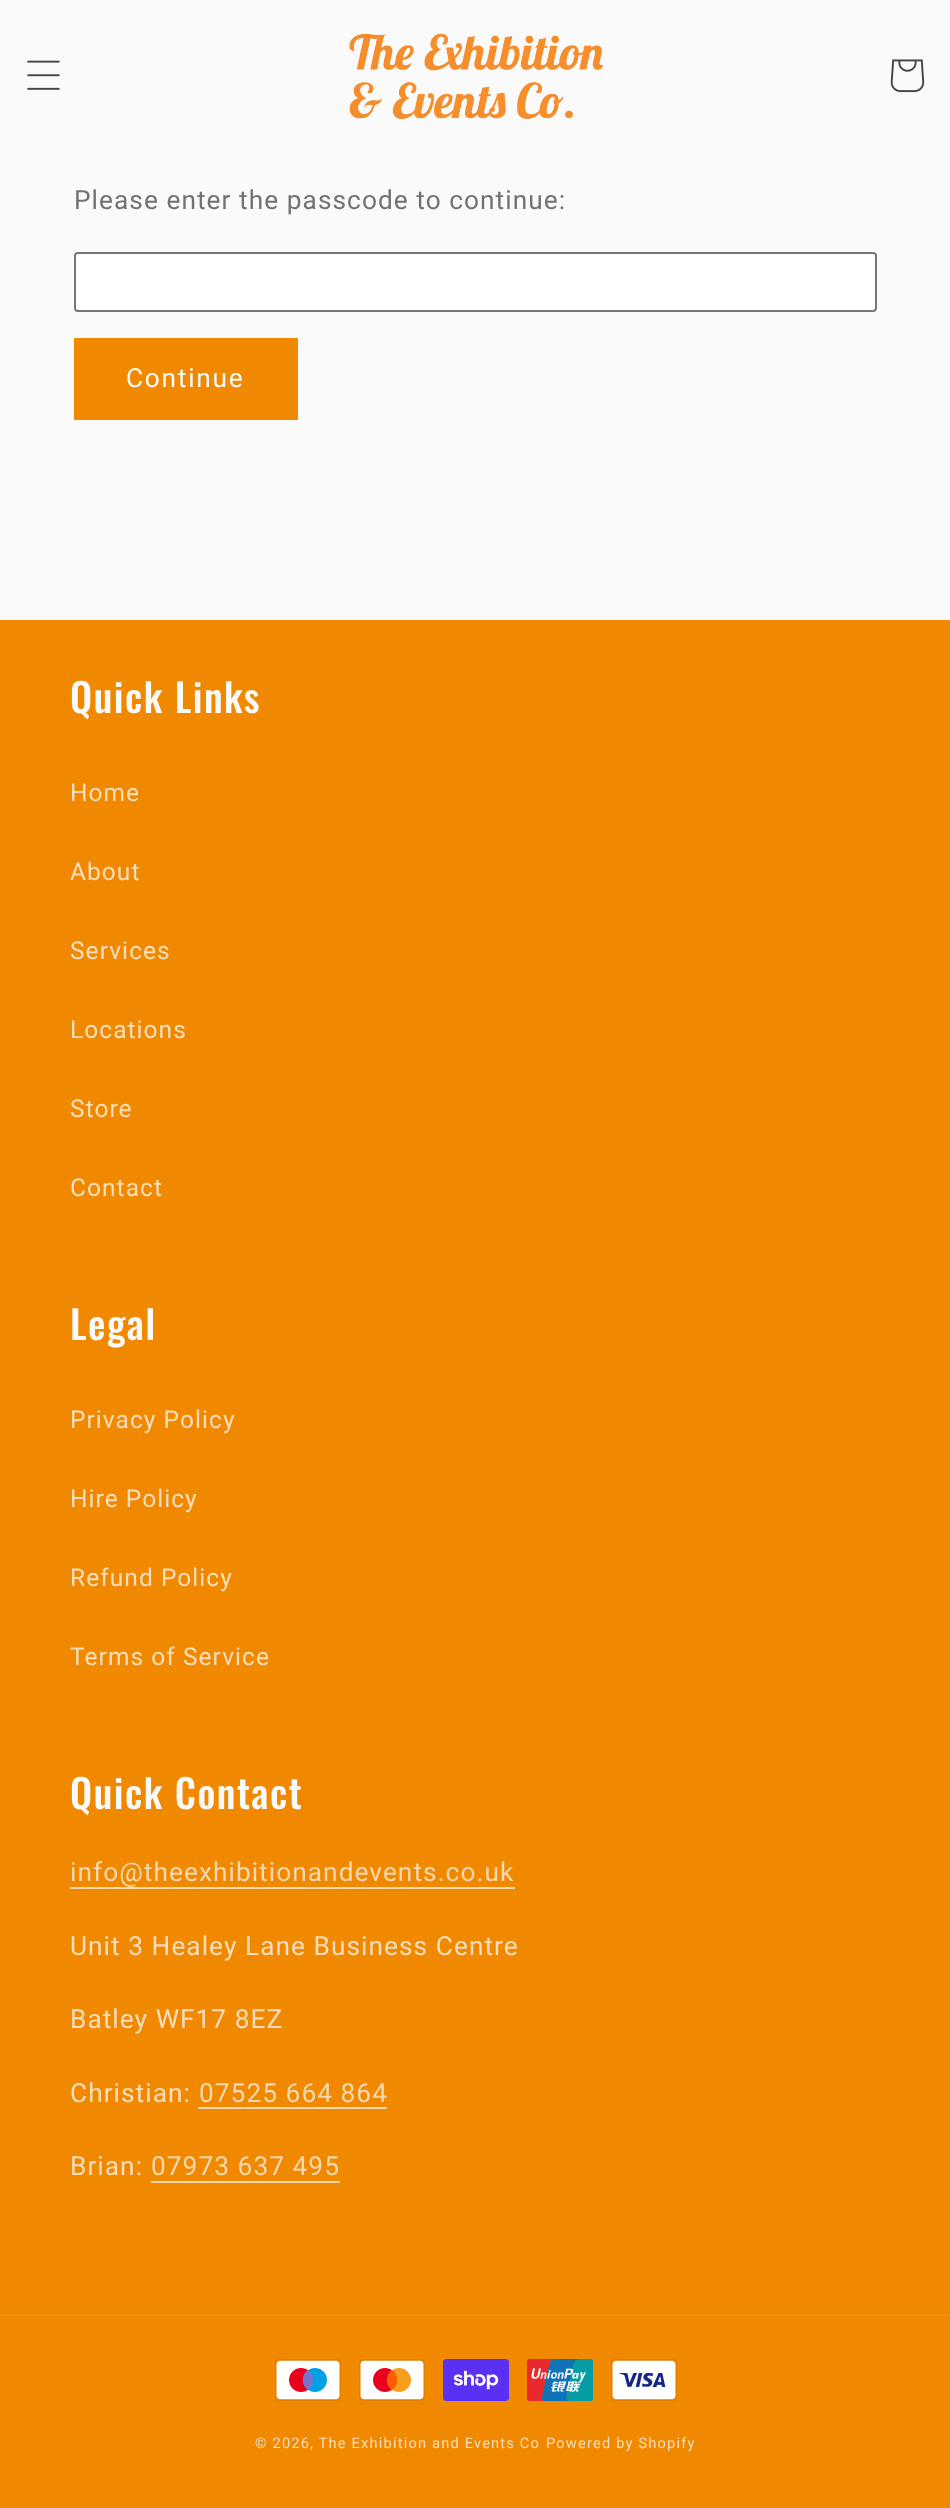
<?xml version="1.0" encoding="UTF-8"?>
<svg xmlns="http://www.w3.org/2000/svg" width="950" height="2508">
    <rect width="100%" height="100%" fill="#FAFAFA"/>
    <image x="27" y="60" width="33" height="30" href="img_01.png"/>
    <image x="349" y="33" width="254" height="86" href="img_02.png"/>
    <image x="890" y="59" width="35" height="34" href="img_03.png"/>
    <text x="74" y="209" font-family="Roboto" font-size="26.25" letter-spacing="1.05" fill="#727272">Please enter the passcode to continue:</text>
    <rect x="75" y="253" width="801" height="58" rx="3" fill="#FFFFFF" stroke="#767676" stroke-width="2"/>
    <rect x="74" y="338" width="224" height="82" fill="#F18900"/>
    <text x="126" y="387" font-family="Roboto" font-size="26.25" letter-spacing="1.75" fill="#FAFAFA">Continue</text>
    <rect x="0" y="620" width="950" height="1888" fill="#F18900"/>
    <text x="70" y="713" font-family="Oswald" font-size="39.25" font-weight="500" letter-spacing="1.5" fill="#FAFAFA">Quick Links</text>
    <text x="70" y="801" font-family="Roboto" font-size="24.5" letter-spacing="1.05" fill="#F8DEBC">Home</text>
    <text x="70" y="880" font-family="Roboto" font-size="24.5" letter-spacing="1.05" fill="#F8DEBC">About</text>
    <text x="70" y="959" font-family="Roboto" font-size="24.5" letter-spacing="1.05" fill="#F8DEBC">Services</text>
    <text x="70" y="1038" font-family="Roboto" font-size="24.5" letter-spacing="1.05" fill="#F8DEBC">Locations</text>
    <text x="70" y="1117" font-family="Roboto" font-size="24.5" letter-spacing="1.05" fill="#F8DEBC">Store</text>
    <text x="70" y="1196" font-family="Roboto" font-size="24.5" letter-spacing="1.05" fill="#F8DEBC">Contact</text>
    <text x="70" y="1340" font-family="Oswald" font-size="39.25" font-weight="500" letter-spacing="1.5" fill="#FAFAFA">Legal</text>
    <text x="70" y="1428" font-family="Roboto" font-size="24.5" letter-spacing="1.05" fill="#F8DEBC">Privacy Policy</text>
    <text x="70" y="1507" font-family="Roboto" font-size="24.5" letter-spacing="1.05" fill="#F8DEBC">Hire Policy</text>
    <text x="70" y="1586" font-family="Roboto" font-size="24.5" letter-spacing="1.05" fill="#F8DEBC">Refund Policy</text>
    <text x="70" y="1665" font-family="Roboto" font-size="24.5" letter-spacing="1.05" fill="#F8DEBC">Terms of Service</text>
    <text x="70" y="1809" font-family="Oswald" font-size="39.25" font-weight="500" letter-spacing="1.5" fill="#FAFAFA">Quick Contact</text>
    <text x="70" y="1881" font-family="Roboto" font-size="26.25" letter-spacing="1.05" fill="#F7D8AF">info@theexhibitionandevents.co.uk</text>
    <rect x="70" y="1887" width="445" height="2" fill="#F7D8AF"/>
    <text x="70" y="1955" font-family="Roboto" font-size="26.25" letter-spacing="1.05" fill="#F8DEBC">Unit 3 Healey Lane Business Centre</text>
    <text x="70" y="2028" font-family="Roboto" font-size="26.25" letter-spacing="1.05" fill="#F8DEBC">Batley WF17 8EZ</text>
    <text x="70" y="2102" font-family="Roboto" font-size="26.25" letter-spacing="1.05" fill="#F8DEBC">Christian:</text>
    <text x="199" y="2102" font-family="Roboto" font-size="26.25" letter-spacing="1.05" fill="#F7D8AF">07525 664 864</text>
    <rect x="198" y="2107" width="189" height="2" fill="#F7D8AF"/>
    <text x="70" y="2175" font-family="Roboto" font-size="26.25" letter-spacing="1.05" fill="#F8DEBC">Brian:</text>
    <text x="151" y="2175" font-family="Roboto" font-size="26.25" letter-spacing="1.05" fill="#F7D8AF">07973 637 495</text>
    <rect x="151" y="2181" width="189" height="2" fill="#F7D8AF"/>
    <rect x="0" y="2314" width="950" height="2" fill="#F29214"/>
    <image x="275" y="2359" width="66" height="42" href="img_04.png"/>
    <image x="359" y="2359" width="66" height="42" href="img_05.png"/>
    <image x="443" y="2359" width="66" height="42" href="img_06.png"/>
    <image x="527" y="2359" width="66" height="42" href="img_07.png"/>
    <image x="611" y="2359" width="66" height="42" href="img_08.png"/>
    <text x="255" y="2448" font-family="Roboto" font-size="14.6" letter-spacing="1.2" fill="#F8DEBC">© 2026, The Exhibition and Events Co</text>
    <text x="546" y="2448" font-family="Roboto" font-size="14.6" letter-spacing="1.2" fill="#F8DEBC">Powered by Shopify</text>
</svg>
